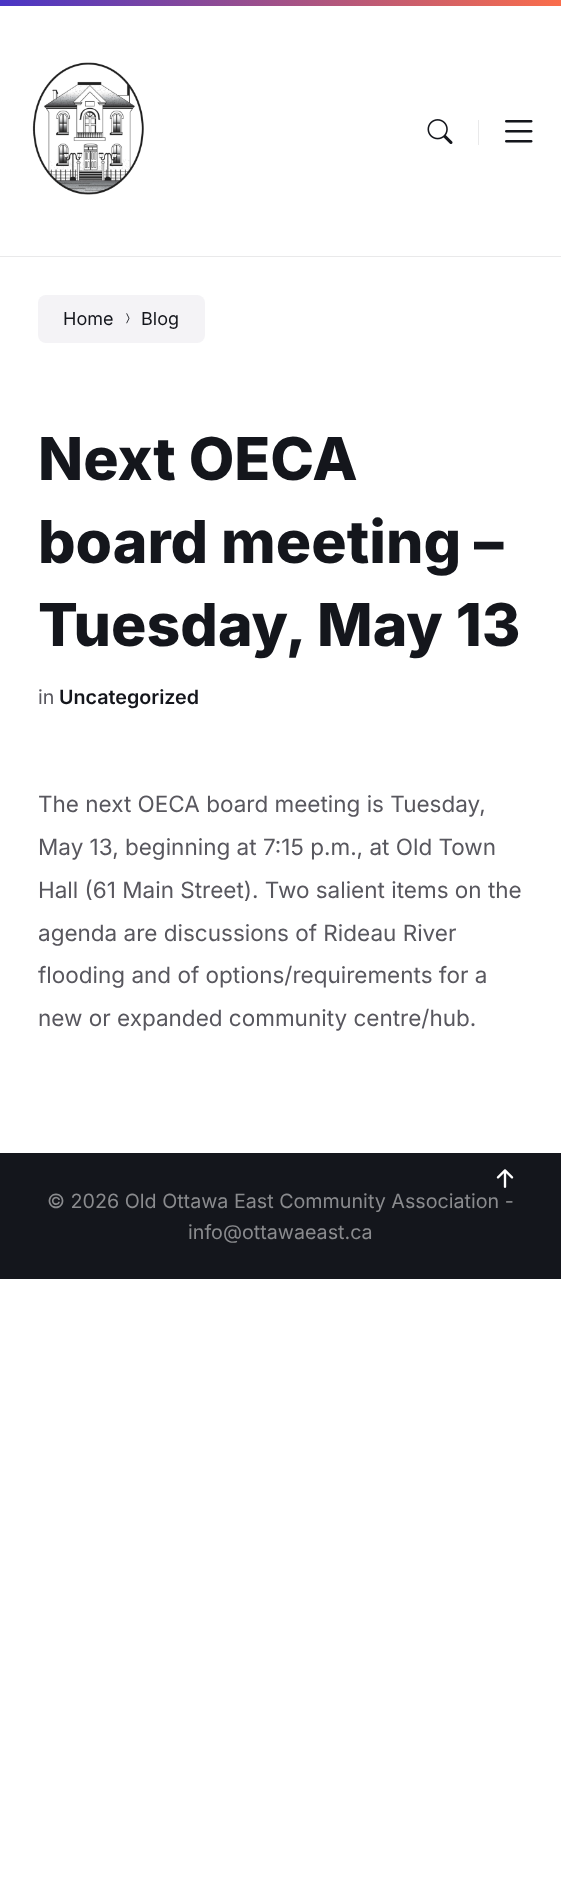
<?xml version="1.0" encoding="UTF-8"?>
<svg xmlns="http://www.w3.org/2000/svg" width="561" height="1885">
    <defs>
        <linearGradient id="g1" gradientUnits="userSpaceOnUse" x1="0" y1="3.1" x2="561" y2="3.1"><stop offset="0" stop-color="#4935C5"/><stop offset="1" stop-color="#FA6D4B"/></linearGradient>
    </defs>
    <rect width="100%" height="100%" fill="#FFFFFF"/>
    <rect x="0" y="256" width="561" height="1" fill="#E9E9EA"/>
    <rect x="0" y="0" width="561" height="6" fill="url(#g1)"/>
    <image x="32" y="62" width="112" height="133" href="img_01.png"/>
    <image x="427" y="119" width="26" height="25" href="img_02.png"/>
    <rect x="478" y="120" width="1" height="25" fill="#E9E9EA"/>
    <image x="505" y="120" width="28" height="23" href="img_03.png"/>
    <rect x="38" y="295" width="167" height="48" rx="8" fill="#F4F3F6"/>
    <text x="63" y="325" font-family="Inter" font-size="18" fill="#14161C">Home</text>
    <image x="126" y="313" width="4" height="11" href="img_04.png"/>
    <text x="141" y="325" font-family="Inter" font-size="18" fill="#14161C">Blog</text>
    <text font-family="Inter" font-size="59" font-weight="800" fill="#14161C">
        <tspan x="38" y="480">Next OECA</tspan>
        <tspan x="38" y="563">board meeting –</tspan>
        <tspan x="38" y="646">Tuesday, May 13</tspan>
    </text>
    <text x="38" y="704" font-family="Inter" font-size="19.7" fill="#58575E">in</text>
    <text x="59" y="704" font-family="Inter" font-size="19.7" font-weight="600" fill="#14161C">Uncategorized</text>
    <text font-family="Inter" font-size="22.5" fill="#58575E">
        <tspan x="38" y="812">The next OECA board meeting is Tuesday,</tspan>
        <tspan x="38" y="855">May 13, beginning at 7:15 p.m., at Old Town</tspan>
        <tspan x="38" y="898">Hall (61 Main Street). Two salient items on the</tspan>
        <tspan x="38" y="941">agenda are discussions of Rideau River</tspan>
        <tspan x="38" y="983">flooding and of options/requirements for a</tspan>
        <tspan x="38" y="1026">new or expanded community centre/hub.</tspan>
    </text>
    <rect x="0" y="1153" width="561" height="126" fill="#14161C"/>
    <image x="496" y="1169" width="18" height="19" href="img_05.png"/>
    <text x="47" y="1208" font-family="Inter" font-size="19.7" fill="#8A8B8E">© 2026 Old Ottawa East Community Association -</text>
    <text x="188" y="1239" font-family="Inter" font-size="19.7" fill="#8A8B8E">info@ottawaeast.ca</text>
</svg>
